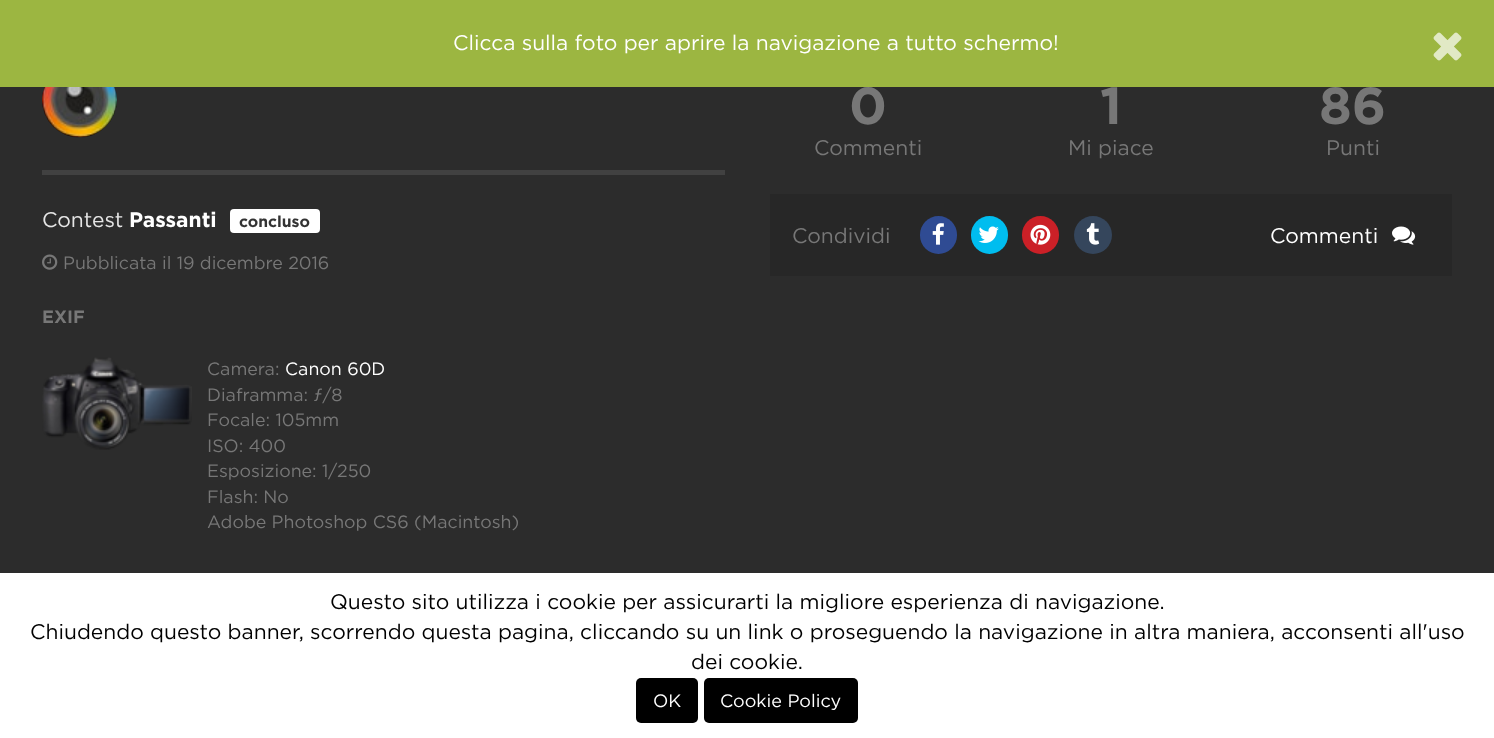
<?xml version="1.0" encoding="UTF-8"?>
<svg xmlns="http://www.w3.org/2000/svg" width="1494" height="738">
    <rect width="100%" height="100%" fill="#2C2C2C"/>
    <text x="849" y="124" font-family="Gotham" font-size="52" font-weight="700" fill="#777777">0</text>
    <text x="1319" y="124" font-family="Gotham" font-size="52" font-weight="700" fill="#777777">86</text>
    <rect x="0" y="0" width="1494" height="87" fill="#9CB641"/>
    <text x="453" y="50" font-family="Gotham" font-size="21" fill="#FFFFFF">Clicca sulla foto per aprire la navigazione a tutto schermo!</text>
    <image x="1433" y="32" width="29" height="29" href="img_01.png"/>
    <text x="814" y="155" font-family="Gotham" font-size="21" fill="#777777">Commenti</text>
    <text x="1100" y="124" font-family="Gotham" font-size="52" font-weight="700" fill="#777777">1</text>
    <text x="1068" y="155" font-family="Gotham" font-size="21" fill="#777777">Mi piace</text>
    <text x="1326" y="155" font-family="Gotham" font-size="21" fill="#777777">Punti</text>
    <rect x="770" y="194" width="682" height="82" fill="#272727"/>
    <text x="792" y="243" font-family="Gotham" font-size="21" fill="#777777">Condividi</text>
    <rect x="920" y="216" width="37" height="38" rx="18.5" fill="#2F4B93"/>
    <image x="932" y="223" width="12" height="22" href="img_02.png"/>
    <rect x="971" y="216" width="37" height="38" rx="18.5" fill="#00BDEF"/>
    <image x="978" y="226" width="21" height="17" href="img_03.png"/>
    <rect x="1022" y="216" width="37" height="38" rx="18.5" fill="#CB2027"/>
    <image x="1030" y="224" width="21" height="21" href="img_04.png"/>
    <circle cx="1093" cy="235" r="19" fill="#35465C"/>
    <image x="1086" y="223" width="14" height="22" href="img_05.png"/>
    <text x="1270" y="243" font-family="Gotham" font-size="21" fill="#FFFFFF">Commenti</text>
    <image x="1392" y="226" width="24" height="19" href="img_06.png"/>
    <image x="42" y="87" width="75" height="51" href="img_07.png"/>
    <rect x="42" y="170" width="683" height="5" fill="#414141"/>
    <text x="42" y="227" font-family="Gotham" font-size="21" fill="#E6E6E6">Contest</text>
    <text x="129" y="227" font-family="Gotham" font-size="21" font-weight="700" fill="#FFFFFF">Passanti</text>
    <rect x="230" y="209" width="90" height="24" rx="4" fill="#FFFFFF"/>
    <text x="239" y="227" font-family="Gotham" font-size="15.75" font-weight="700" fill="#333333">concluso</text>
    <image x="42" y="254" width="16" height="16" href="img_08.png"/>
    <text x="63" y="269" font-family="Gotham" font-size="17.8" fill="#777777">Pubblicata il 19 dicembre 2016</text>
    <text x="42" y="323" font-family="Gotham" font-size="17.8" font-weight="700" fill="#777777">EXIF</text>
    <image x="42" y="357" width="150" height="93" href="img_09.png"/>
    <text x="207" y="375" font-family="Gotham" font-size="17.8" fill="#777777">Camera:</text>
    <text x="285" y="375" font-family="Gotham" font-size="17.8" fill="#FFFFFF">Canon 60D</text>
    <text font-family="Gotham" font-size="17.8" fill="#777777">
        <tspan x="207" y="401">Diaframma: ƒ/8</tspan>
        <tspan x="207" y="426">Focale: 105mm</tspan>
        <tspan x="207" y="452">ISO: 400</tspan>
        <tspan x="207" y="477">Esposizione: 1/250</tspan>
        <tspan x="207" y="503">Flash: No</tspan>
        <tspan x="207" y="528">Adobe Photoshop CS6 (Macintosh)</tspan>
    </text>
    <rect x="0" y="573" width="1494" height="165" fill="#FFFFFF"/>
    <text x="330" y="609" font-family="Gotham" font-size="21" fill="#000000">Questo sito utilizza i cookie per assicurarti la migliore esperienza di navigazione.</text>
    <text x="30" y="639" font-family="Gotham" font-size="21" fill="#000000">Chiudendo questo banner, scorrendo questa pagina, cliccando su un link o proseguendo la navigazione in altra maniera, acconsenti all'uso</text>
    <text x="691" y="669" font-family="Gotham" font-size="21" fill="#000000">dei cookie.</text>
    <rect x="636" y="678" width="62" height="45" rx="5" fill="#000000"/>
    <text x="653" y="707" font-family="Gotham" font-size="18" fill="#FFFFFF">OK</text>
    <rect x="704" y="678" width="154" height="45" rx="5" fill="#000000"/>
    <text x="720" y="707" font-family="Gotham" font-size="18" fill="#FFFFFF">Cookie Policy</text>
</svg>
